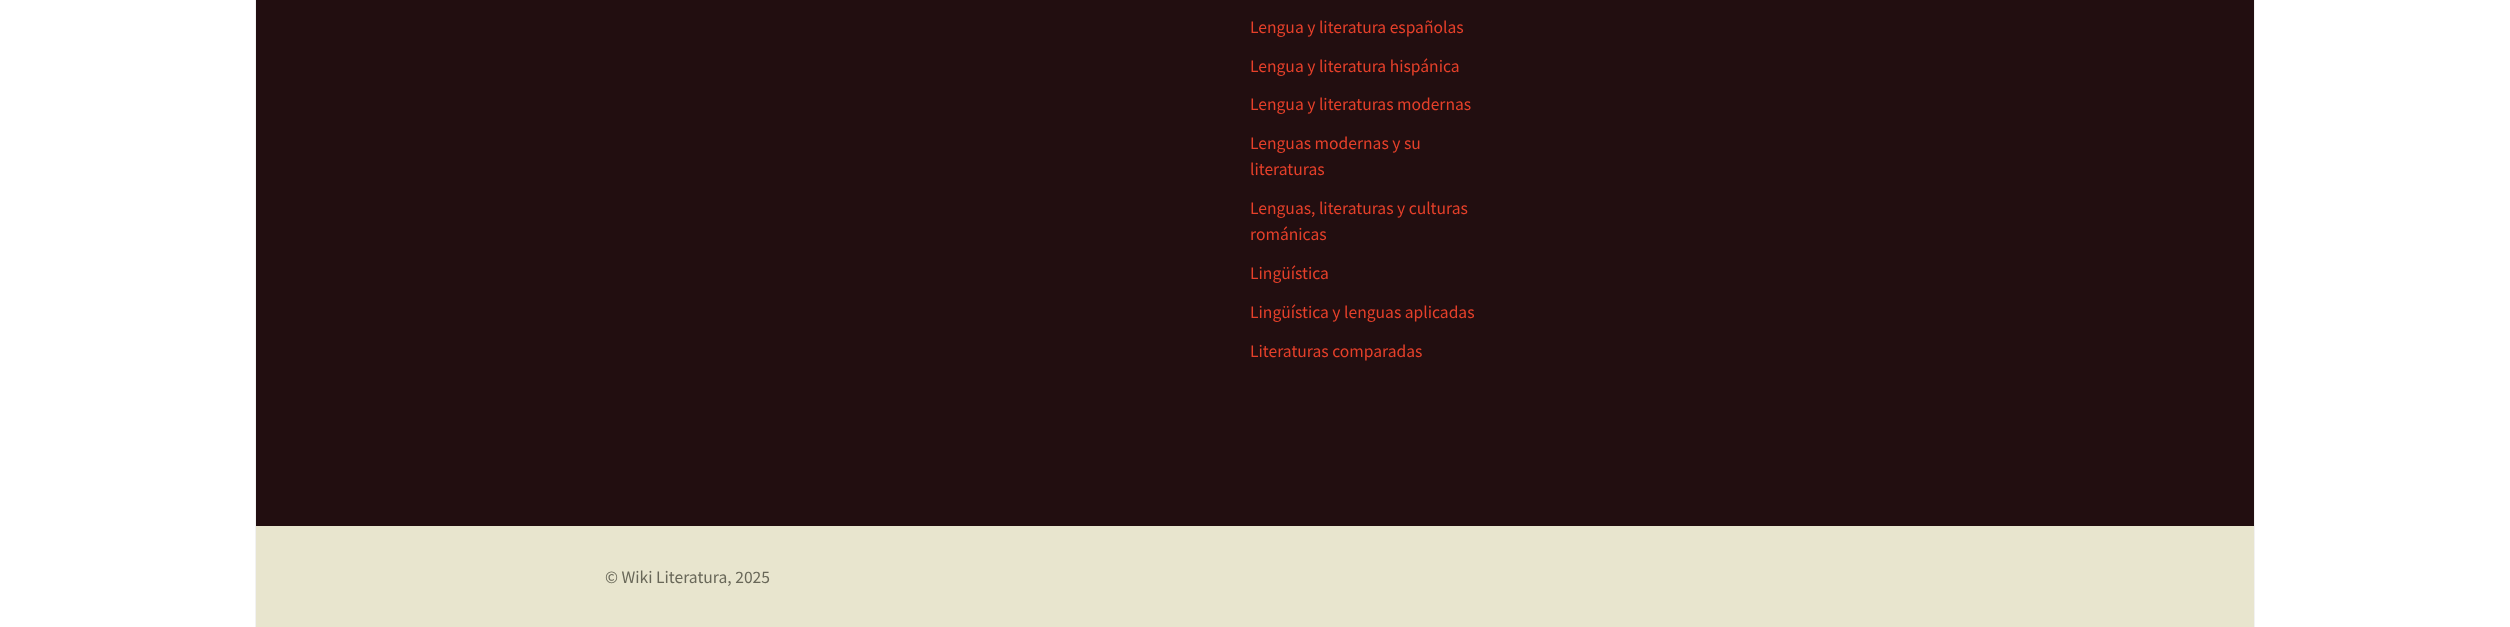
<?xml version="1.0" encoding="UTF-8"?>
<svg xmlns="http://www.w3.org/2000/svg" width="2510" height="627">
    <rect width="100%" height="100%" fill="#FFFFFF"/>
    <rect x="2254" y="0" width="1" height="627" fill="#F2F2F2"/>
    <rect x="255" y="0" width="1" height="627" fill="#F2F2F2"/>
    <rect x="256" y="526" width="1998" height="101" fill="#E8E5CE"/>
    <rect x="256" y="0" width="1998" height="526" fill="#220E10"/>
    <text x="1250" y="33" font-family="Source Sans Pro" font-size="17.5" fill="#E6402A">Lengua y literatura españolas</text>
    <text x="1250" y="72" font-family="Source Sans Pro" font-size="17.5" fill="#E6402A">Lengua y literatura hispánica</text>
    <text x="1250" y="110" font-family="Source Sans Pro" font-size="17.5" fill="#E6402A">Lengua y literaturas modernas</text>
    <text font-family="Source Sans Pro" font-size="17.5" fill="#E6402A">
        <tspan x="1250" y="149">Lenguas modernas y su</tspan>
        <tspan x="1250" y="175">literaturas</tspan>
    </text>
    <text font-family="Source Sans Pro" font-size="17.5" fill="#E6402A">
        <tspan x="1250" y="214">Lenguas, literaturas y culturas</tspan>
        <tspan x="1250" y="240">románicas</tspan>
    </text>
    <text x="1250" y="279" font-family="Source Sans Pro" font-size="17.5" fill="#E6402A">Lingüística</text>
    <text x="1250" y="318" font-family="Source Sans Pro" font-size="17.5" fill="#E6402A">Lingüística y lenguas aplicadas</text>
    <text x="1250" y="357" font-family="Source Sans Pro" font-size="17.5" fill="#E6402A">Literaturas comparadas</text>
    <text x="605" y="583" font-family="Source Sans Pro" font-size="17.5" fill="#686758">© Wiki Literatura, 2025</text>
</svg>
